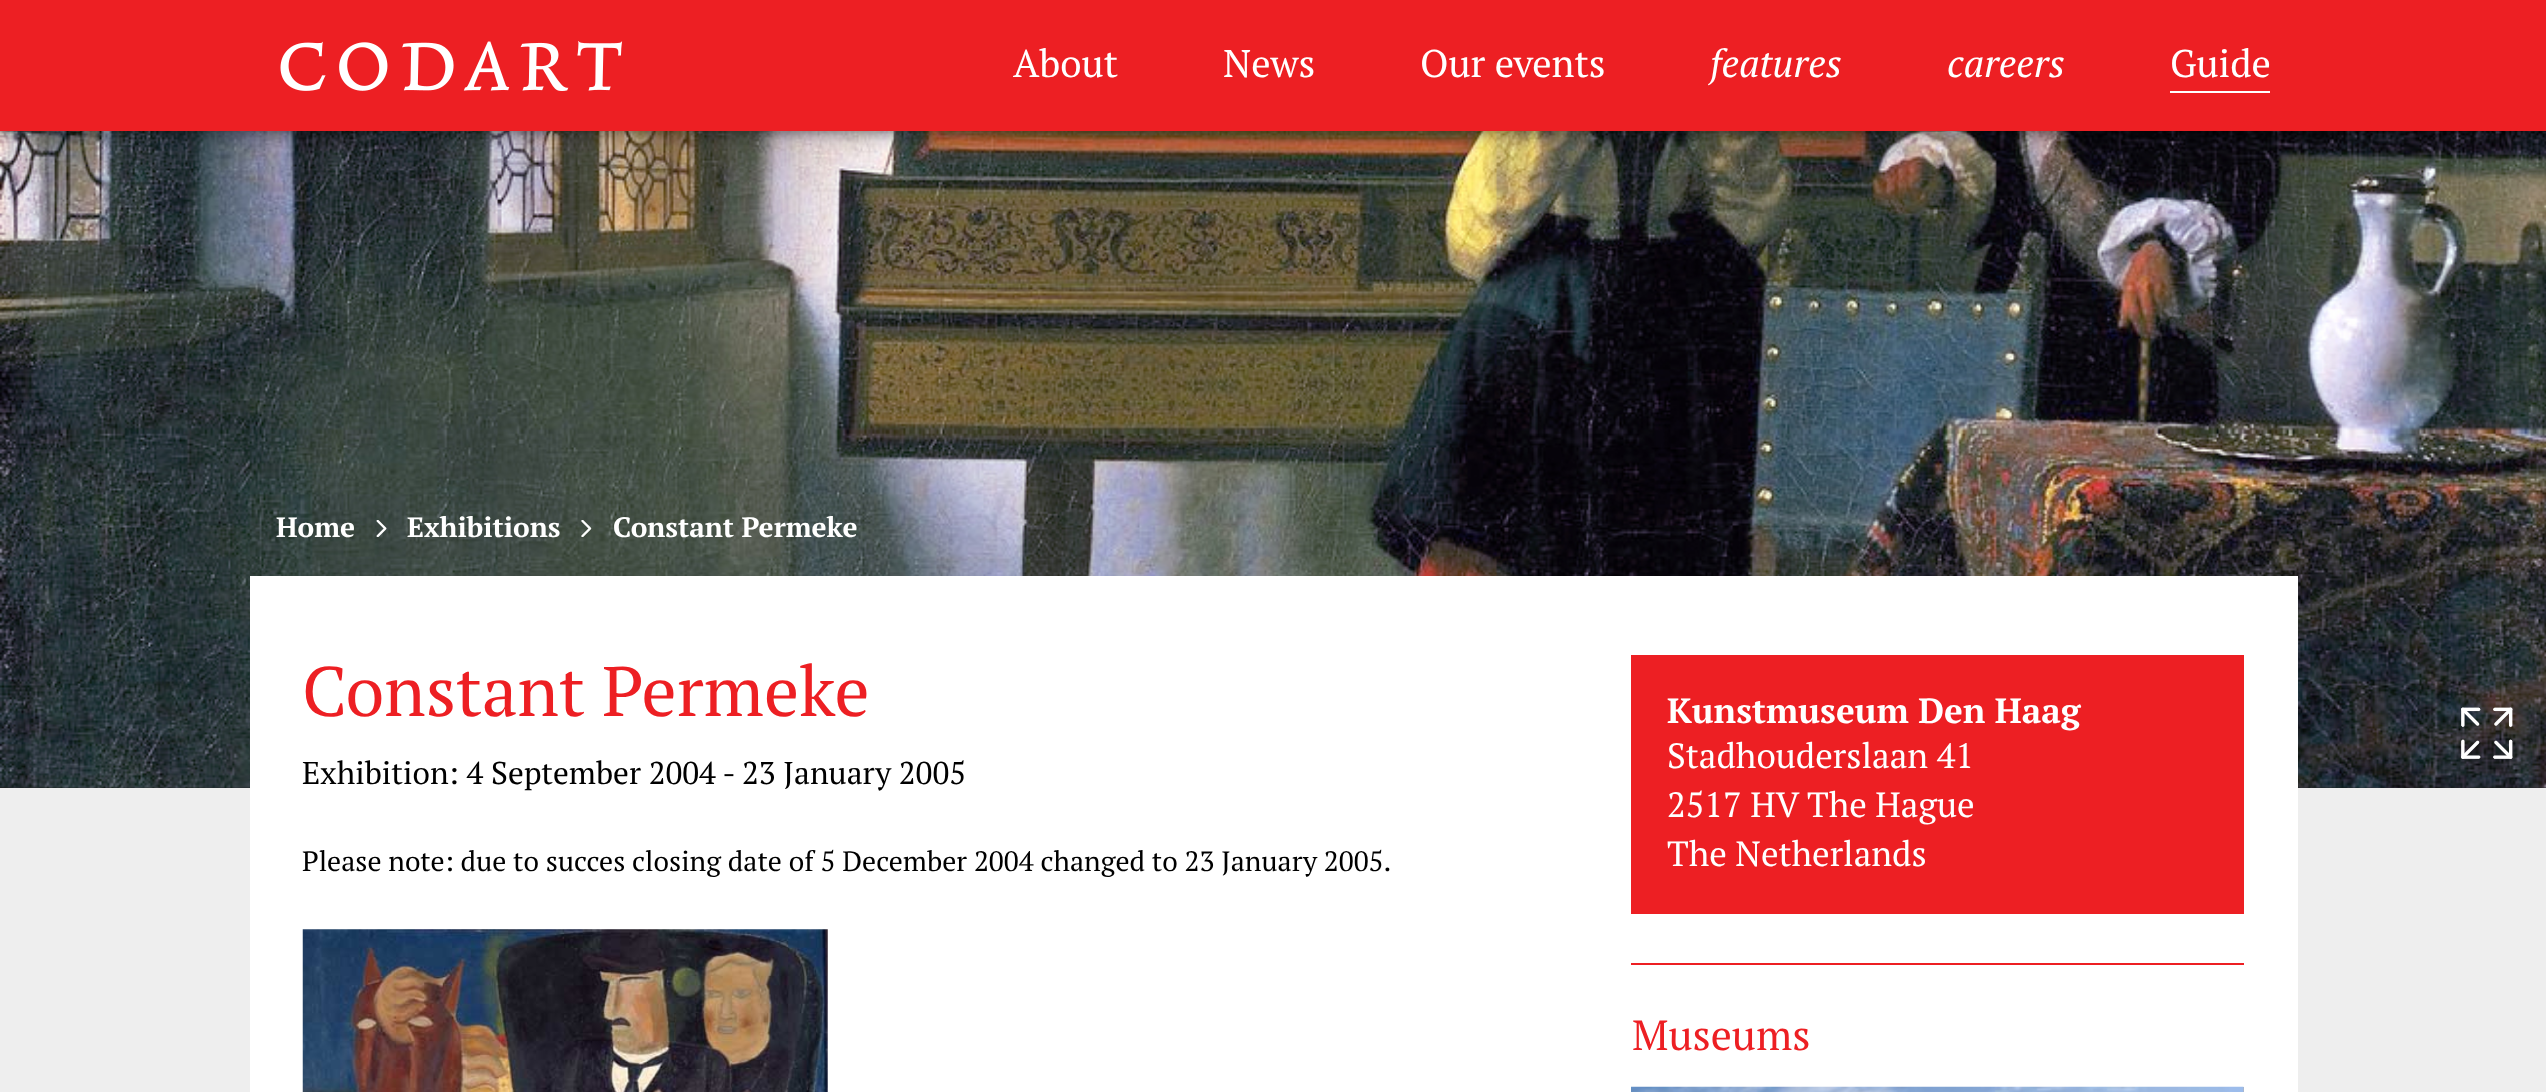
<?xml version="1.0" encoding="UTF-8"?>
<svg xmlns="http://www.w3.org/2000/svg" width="2546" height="1092">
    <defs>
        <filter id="blur1" x="-50%" y="-200%" width="200%" height="500%"><feGaussianBlur stdDeviation="9"/></filter>
    </defs>
    <rect width="100%" height="100%" fill="#EEEEEE"/>
    <rect x="0" y="787" width="2546" height="1" fill="#222222"/>
    <image x="0" y="131" width="2546" height="657" href="img_02.png"/>
    <rect x="0" y="0" width="2546" height="131" fill="#000000" fill-opacity="0.65" filter="url(#blur1)"/>
    <rect x="0" y="0" width="2546" height="131" fill="#ED1F23"/>
    <image x="280" y="41" width="343" height="50" href="img_01.png"/>
    <text x="1013" y="77" font-family="PT Serif" font-size="38.5" fill="#FFFFFF">About</text>
    <text x="1223" y="77" font-family="PT Serif" font-size="38.5" fill="#FFFFFF">News</text>
    <text x="1420" y="77" font-family="PT Serif" font-size="38.5" fill="#FFFFFF">Our events</text>
    <text x="1710" y="77" font-family="PT Serif" font-size="38.5" font-style="italic" fill="#FFFFFF">features</text>
    <text x="1947" y="77" font-family="PT Serif" font-size="38.5" font-style="italic" fill="#FFFFFF">careers</text>
    <text x="2170" y="77" font-family="PT Serif" font-size="38.5" fill="#FFFFFF">Guide</text>
    <rect x="2170" y="91" width="100" height="2" fill="#FFFFFF"/>
    <image x="8" y="558" width="2538" height="230" href="img_03.png"/>
    <text x="276" y="537" font-family="PT Serif" font-size="28" font-weight="700" fill="#FFFFFF">Home</text>
    <image x="376" y="520" width="11" height="17" href="img_04.png"/>
    <text x="407" y="537" font-family="PT Serif" font-size="28" font-weight="700" fill="#FFFFFF">Exhibitions</text>
    <image x="581" y="520" width="11" height="17" href="img_05.png"/>
    <text x="613" y="537" font-family="PT Serif" font-size="28" font-weight="700" fill="#FFFFFF">Constant Permeke</text>
    <rect x="250" y="576" width="2048" height="516" fill="#FFFFFF"/>
    <text x="302" y="716" font-family="PT Serif" font-size="70" fill="#ED1F23">Constant Permeke</text>
    <text x="302" y="784" font-family="PT Serif" font-size="31.5" fill="#000000">Exhibition: 4 September 2004 - 23 January 2005</text>
    <text x="302" y="871" font-family="PT Serif" font-size="28" fill="#000000">Please note: due to succes closing date of 5 December 2004 changed to 23 January 2005.</text>
    <image x="302" y="929" width="526" height="163" href="img_06.png"/>
    <rect x="1631" y="655" width="613" height="259" fill="#ED1F23"/>
    <text x="1667" y="723" font-family="PT Serif" font-size="35" font-weight="700" fill="#FFFFFF">Kunstmuseum Den Haag</text>
    <text font-family="PT Serif" font-size="35" fill="#FFFFFF">
        <tspan x="1667" y="768">Stadhouderslaan 41</tspan>
        <tspan x="1667" y="817">2517 HV The Hague</tspan>
        <tspan x="1667" y="866">The Netherlands</tspan>
    </text>
    <rect x="1631" y="963" width="613" height="2" fill="#ED1F23"/>
    <text x="1632" y="1050" font-family="PT Serif" font-size="42" fill="#ED1F23">Museums</text>
    <rect x="2243" y="1087" width="1" height="5" fill="#B3B3B3"/>
    <image x="1631" y="1086" width="613" height="6" href="img_07.png"/>
    <image x="2461" y="707" width="20" height="20" href="img_08.png"/>
    <image x="2493" y="707" width="20" height="20" href="img_09.png"/>
    <image x="2461" y="739" width="20" height="20" href="img_10.png"/>
    <image x="2493" y="739" width="20" height="20" href="img_11.png"/>
</svg>
